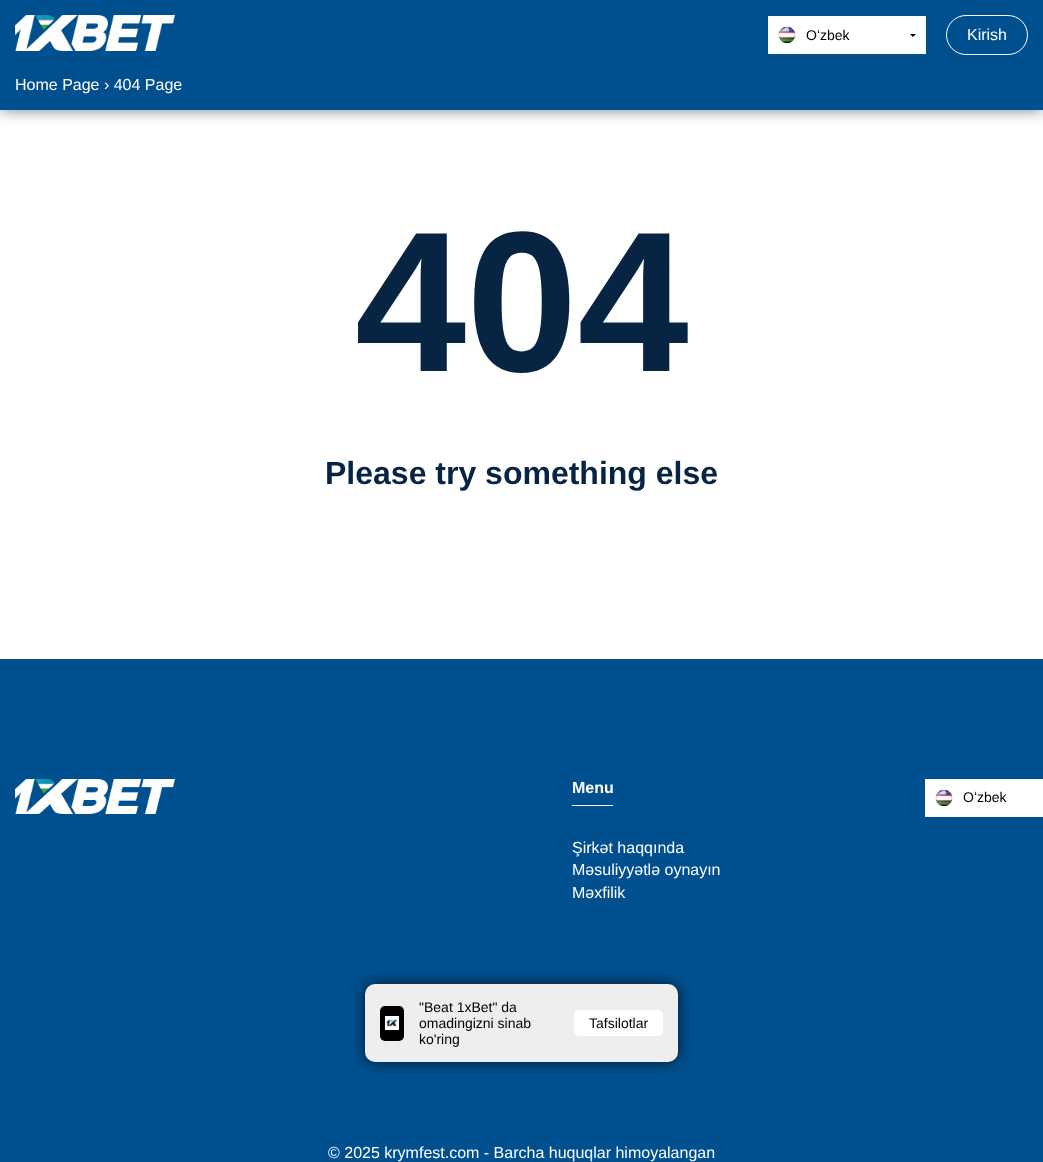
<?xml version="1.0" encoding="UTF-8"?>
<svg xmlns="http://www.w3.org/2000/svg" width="1043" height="1162">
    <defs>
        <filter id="blur1" x="-50%" y="-200%" width="200%" height="500%"><feGaussianBlur stdDeviation="7.5"/></filter>
    </defs>
    <rect width="100%" height="100%" fill="#FFFFFF"/>
    <rect x="0" y="0" width="1043" height="110" fill="#000000" fill-opacity="0.5" filter="url(#blur1)"/>
    <rect x="0" y="0" width="1043" height="110" fill="#00508F"/>
    <image x="15" y="15" width="160" height="36" href="img_01.png"/>
    <rect x="768" y="16" width="158" height="38" fill="#FFFFFF"/>
    <circle cx="787" cy="35" r="8.5" fill="#000000" stroke="#FFFFFF"/>
    <image x="779" y="27" width="16" height="16" href="img_02.png"/>
    <text x="806" y="40" font-family="Liberation Sans" font-size="14" fill="#000000">Oʻzbek</text>
    <path d="M 910 34 H 916 L 913 37 Z" fill="#000000"/>
    <rect x="946.5" y="15.5" width="81" height="39" rx="19.5" fill="none" stroke="#FFFFFF"/>
    <text x="967" y="40" font-family="Liberation Sans" font-size="16" fill="#FFFFFF">Kirish</text>
    <text x="15" y="90" font-family="Liberation Sans" font-size="16" fill="#FFFFFF">Home Page › 404 Page</text>
    <text x="355" y="371" font-family="Liberation Sans" font-size="200" font-weight="700" fill="#072442">404</text>
    <text x="325" y="484" font-family="Liberation Sans" font-size="32" font-weight="700" fill="#072442">Please try something else</text>
    <rect x="0" y="659" width="1043" height="503" fill="#00508F"/>
    <image x="15" y="779" width="160" height="35" href="img_03.png"/>
    <text x="572" y="793" font-family="Liberation Sans" font-size="16" font-weight="700" fill="#FFFFFF">Menu</text>
    <rect x="572" y="805" width="41" height="1" fill="#FFFFFF"/>
    <text font-family="Liberation Sans" font-size="16" fill="#FFFFFF">
        <tspan x="572" y="853">Şirkət haqqında</tspan>
        <tspan x="572" y="875">Məsuliyyətlə oynayın</tspan>
        <tspan x="572" y="898">Məxfilik</tspan>
    </text>
    <rect x="925" y="779" width="118" height="38" fill="#FFFFFF"/>
    <circle cx="944" cy="798" r="8.5" fill="#000000" stroke="#FFFFFF"/>
    <image x="936" y="790" width="16" height="16" href="img_04.png"/>
    <text x="963" y="802" font-family="Liberation Sans" font-size="14" fill="#000000">Oʻzbek</text>
    <text x="328" y="1158" font-family="Liberation Sans" font-size="16" fill="#FFFFFF">© 2025 krymfest.com - Barcha huquqlar himoyalangan</text>
    <rect x="365" y="984" width="313" height="78" rx="10" fill="#000000" fill-opacity="0.7" filter="url(#blur1)"/>
    <rect x="365" y="984" width="313" height="78" rx="10" fill="#EEEEEE"/>
    <rect x="380" y="1006" width="24" height="35" rx="5" fill="#000000"/>
    <image x="385" y="1016" width="14" height="14" href="img_05.png"/>
    <text font-family="Liberation Sans" font-size="14" fill="#000000">
        <tspan x="419" y="1012">"Beat 1xBet" da</tspan>
        <tspan x="419" y="1028">omadingizni sinab</tspan>
        <tspan x="419" y="1044">ko'ring</tspan>
    </text>
    <rect x="574" y="1010" width="89" height="26" rx="5" fill="#FFFFFF"/>
    <text x="589" y="1028" font-family="Liberation Sans" font-size="14" fill="#000000">Tafsilotlar</text>
</svg>
